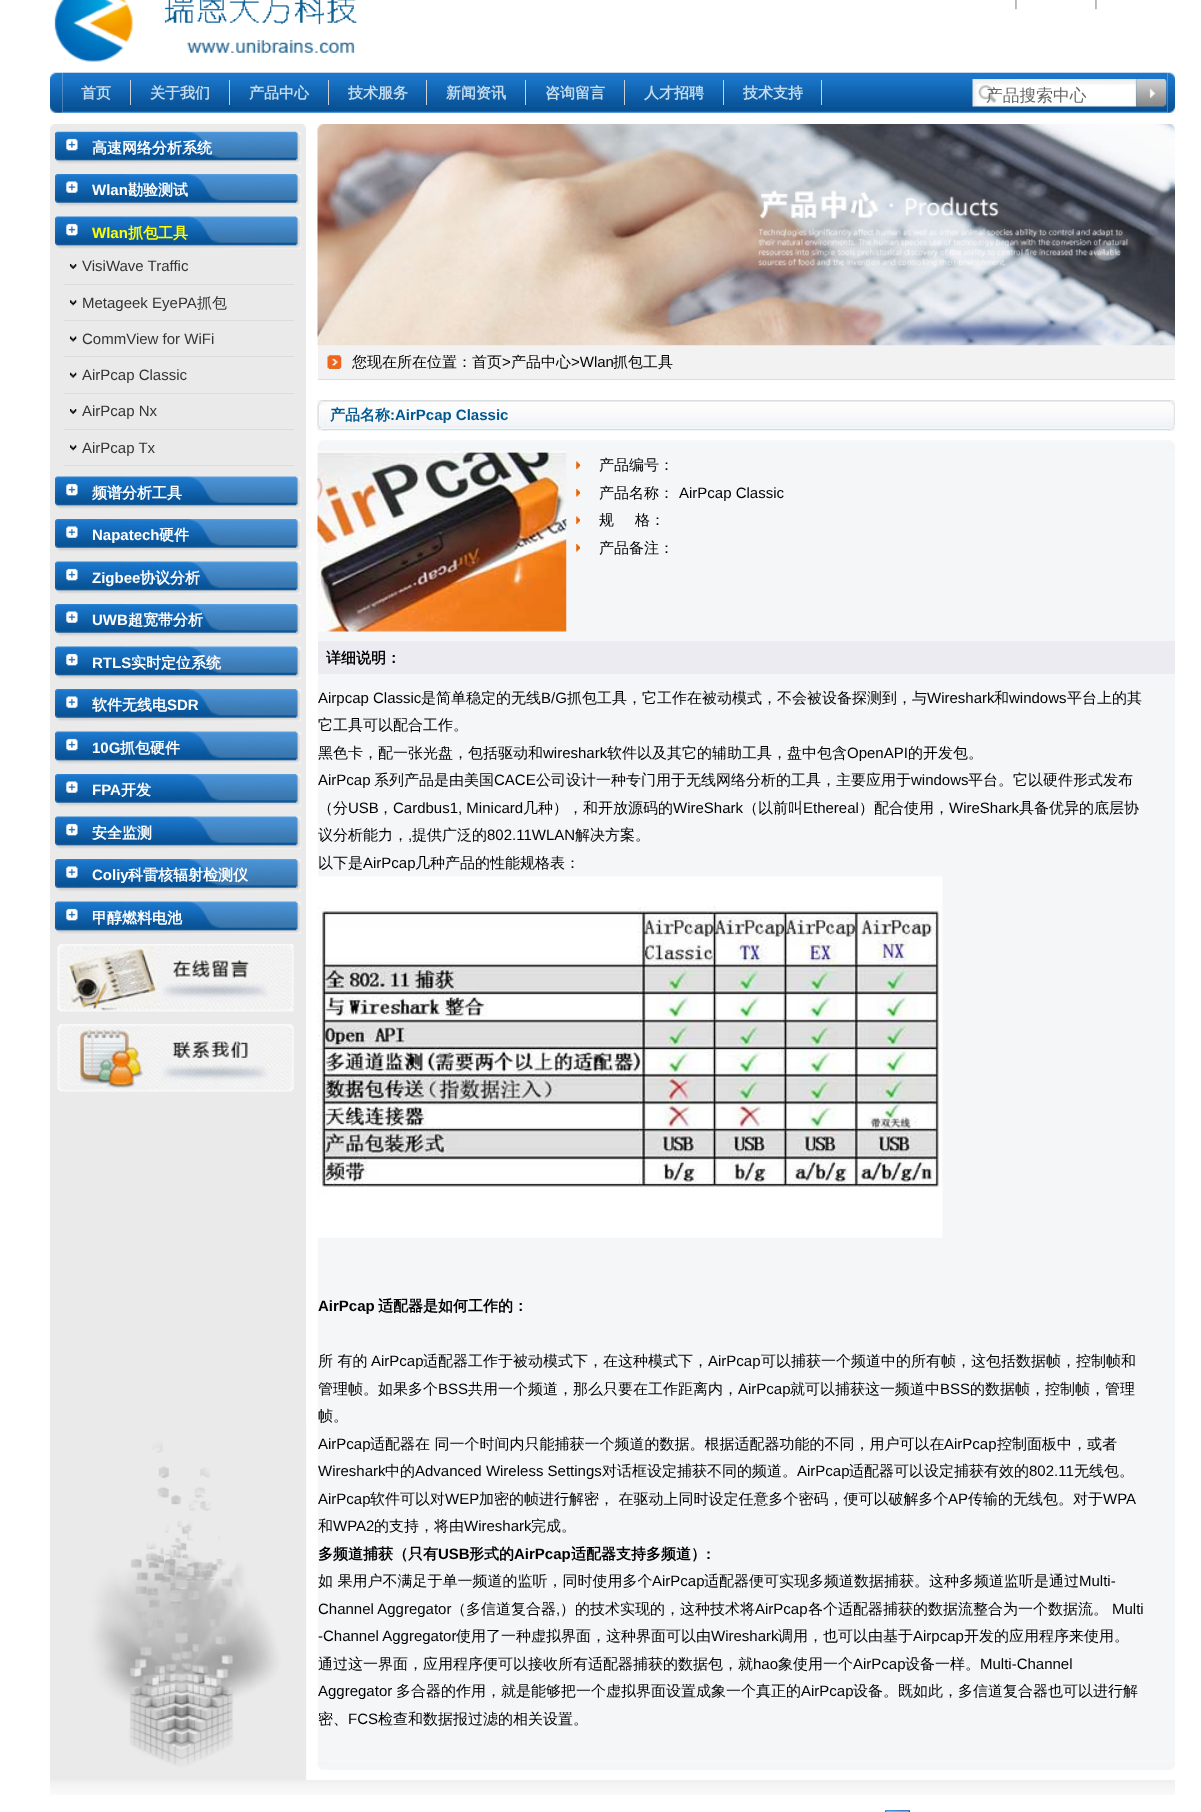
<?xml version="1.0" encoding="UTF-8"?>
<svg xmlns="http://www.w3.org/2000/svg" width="1201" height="1812">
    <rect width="100%" height="100%" fill="#FFFFFF"/>
    <image x="54" y="0" width="303" height="62" href="img_01.png"/>
    <text x="1014" y="6" font-family="Liberation Sans" font-size="15" fill="#999999">|</text>
    <text x="1094" y="6" font-family="Liberation Sans" font-size="15" fill="#999999">|</text>
    <image x="62" y="72" width="878" height="41" href="img_03.png"/>
    <image x="50" y="72" width="13" height="41" href="img_02.png"/>
    <rect x="130" y="80" width="1" height="25" fill="#CCD1D7"/>
    <text x="81" y="98" font-family="WenQuanYi Zen Hei" font-size="15" font-weight="700" fill="#C3DBED">首页</text>
    <rect x="229" y="80" width="1" height="25" fill="#CCD1D7"/>
    <text x="150" y="98" font-family="WenQuanYi Zen Hei" font-size="15" font-weight="700" fill="#C3DBED">关于我们</text>
    <rect x="328" y="80" width="1" height="25" fill="#CCD1D7"/>
    <text x="249" y="98" font-family="WenQuanYi Zen Hei" font-size="15" font-weight="700" fill="#C3DBED">产品中心</text>
    <rect x="426" y="80" width="1" height="25" fill="#CCD1D7"/>
    <text x="348" y="98" font-family="WenQuanYi Zen Hei" font-size="15" font-weight="700" fill="#C3DBED">技术服务</text>
    <rect x="525" y="80" width="1" height="25" fill="#CCD1D7"/>
    <text x="446" y="98" font-family="WenQuanYi Zen Hei" font-size="15" font-weight="700" fill="#C3DBED">新闻资讯</text>
    <rect x="624" y="80" width="1" height="25" fill="#CCD1D7"/>
    <text x="545" y="98" font-family="WenQuanYi Zen Hei" font-size="15" font-weight="700" fill="#C3DBED">咨询留言</text>
    <rect x="723" y="80" width="1" height="25" fill="#CCD1D7"/>
    <text x="644" y="98" font-family="WenQuanYi Zen Hei" font-size="15" font-weight="700" fill="#C3DBED">人才招聘</text>
    <rect x="821" y="80" width="1" height="25" fill="#CCD1D7"/>
    <text x="743" y="98" font-family="WenQuanYi Zen Hei" font-size="15" font-weight="700" fill="#C3DBED">技术支持</text>
    <image x="940" y="72" width="228" height="41" href="img_04.png"/>
    <image x="972" y="79" width="165" height="28" href="img_05.png"/>
    <text x="986" y="101" font-family="WenQuanYi Zen Hei" font-size="16.75" font-weight="500" fill="#666666">产品搜索中心</text>
    <image x="1136" y="79" width="31" height="28" href="img_06.png"/>
    <image x="1167" y="72" width="8" height="41" href="img_07.png"/>
    <rect x="50" y="131" width="256" height="1649" fill="#EAEAEA"/>
    <image x="52" y="1421" width="255" height="360" href="img_08.png"/>
    <image x="55" y="131" width="246" height="33" href="img_10.png"/>
    <image x="50" y="124" width="257" height="8" href="img_09.png"/>
    <text x="92" y="153" font-family="WenQuanYi Zen Hei" font-size="15" font-weight="700" fill="#FFFFFF">高速网络分析系统</text>
    <image x="55" y="174" width="246" height="33" href="img_11.png"/>
    <text x="92" y="195" font-family="Liberation Sans" font-size="15" font-weight="700" fill="#FFFFFF">Wlan</text>
    <text x="128" y="195" font-family="WenQuanYi Zen Hei" font-size="15" font-weight="700" fill="#FFFFFF">勘验测试</text>
    <image x="55" y="216" width="246" height="33" href="img_10.png"/>
    <text x="92" y="238" font-family="Liberation Sans" font-size="15" font-weight="700" fill="#FFFF00">Wlan</text>
    <text x="128" y="238" font-family="WenQuanYi Zen Hei" font-size="15" font-weight="700" fill="#FFFF00">抓包工具</text>
    <text x="82" y="271" font-family="Liberation Sans" font-size="15" fill="#343434">VisiWave Traffic</text>
    <rect x="64" y="284" width="230" height="1" fill="#DCDCDC"/>
    <image x="70" y="264" width="7" height="5" href="img_12.png"/>
    <text x="82" y="308" font-family="Liberation Sans" font-size="15" fill="#343434">Metageek EyePA</text>
    <text x="197" y="308" font-family="WenQuanYi Zen Hei" font-size="15" font-weight="500" fill="#343434">抓包</text>
    <rect x="64" y="320" width="230" height="1" fill="#DCDCDC"/>
    <image x="70" y="300" width="7" height="6" href="img_13.png"/>
    <text x="82" y="344" font-family="Liberation Sans" font-size="15" fill="#343434">CommView for WiFi</text>
    <rect x="64" y="356" width="230" height="1" fill="#DCDCDC"/>
    <image x="70" y="336" width="7" height="6" href="img_14.png"/>
    <text x="82" y="380" font-family="Liberation Sans" font-size="15" fill="#343434">AirPcap Classic</text>
    <rect x="64" y="393" width="230" height="1" fill="#DCDCDC"/>
    <image x="70" y="372" width="7" height="6" href="img_15.png"/>
    <text x="82" y="416" font-family="Liberation Sans" font-size="15" fill="#343434">AirPcap Nx</text>
    <rect x="64" y="429" width="230" height="1" fill="#DCDCDC"/>
    <image x="70" y="409" width="7" height="5" href="img_12.png"/>
    <text x="82" y="453" font-family="Liberation Sans" font-size="15" fill="#343434">AirPcap Tx</text>
    <rect x="64" y="465" width="230" height="1" fill="#DCDCDC"/>
    <image x="70" y="445" width="7" height="6" href="img_13.png"/>
    <image x="55" y="476" width="246" height="33" href="img_10.png"/>
    <text x="92" y="498" font-family="WenQuanYi Zen Hei" font-size="15" font-weight="700" fill="#FFFFFF">频谱分析工具</text>
    <image x="55" y="519" width="246" height="33" href="img_11.png"/>
    <text x="92" y="540" font-family="Liberation Sans" font-size="15" font-weight="700" fill="#FFFFFF">Napatech</text>
    <text x="159" y="540" font-family="WenQuanYi Zen Hei" font-size="15" font-weight="700" fill="#FFFFFF">硬件</text>
    <image x="55" y="561" width="246" height="33" href="img_10.png"/>
    <text x="92" y="583" font-family="Liberation Sans" font-size="15" font-weight="700" fill="#FFFFFF">Zigbee</text>
    <text x="140" y="583" font-family="WenQuanYi Zen Hei" font-size="15" font-weight="700" fill="#FFFFFF">协议分析</text>
    <image x="55" y="604" width="246" height="33" href="img_11.png"/>
    <text x="92" y="625" font-family="Liberation Sans" font-size="15" font-weight="700" fill="#FFFFFF">UWB</text>
    <text x="128" y="625" font-family="WenQuanYi Zen Hei" font-size="15" font-weight="700" fill="#FFFFFF">超宽带分析</text>
    <image x="55" y="646" width="246" height="33" href="img_10.png"/>
    <text x="92" y="668" font-family="Liberation Sans" font-size="15" font-weight="700" fill="#FFFFFF">RTLS</text>
    <text x="131" y="668" font-family="WenQuanYi Zen Hei" font-size="15" font-weight="700" fill="#FFFFFF">实时定位系统</text>
    <image x="55" y="689" width="246" height="33" href="img_11.png"/>
    <text x="92" y="710" font-family="WenQuanYi Zen Hei" font-size="15" font-weight="700" fill="#FFFFFF">软件无线电</text>
    <text x="167" y="710" font-family="Liberation Sans" font-size="15" font-weight="700" fill="#FFFFFF">SDR</text>
    <image x="55" y="731" width="246" height="33" href="img_10.png"/>
    <text x="92" y="753" font-family="Liberation Sans" font-size="15" font-weight="700" fill="#FFFFFF">10G</text>
    <text x="120" y="753" font-family="WenQuanYi Zen Hei" font-size="15" font-weight="700" fill="#FFFFFF">抓包硬件</text>
    <image x="55" y="774" width="246" height="33" href="img_11.png"/>
    <text x="92" y="795" font-family="Liberation Sans" font-size="15" font-weight="700" fill="#FFFFFF">FPA</text>
    <text x="121" y="795" font-family="WenQuanYi Zen Hei" font-size="15" font-weight="700" fill="#FFFFFF">开发</text>
    <image x="55" y="816" width="246" height="33" href="img_10.png"/>
    <text x="92" y="838" font-family="WenQuanYi Zen Hei" font-size="15" font-weight="700" fill="#FFFFFF">安全监测</text>
    <image x="55" y="859" width="246" height="33" href="img_11.png"/>
    <text x="92" y="880" font-family="Liberation Sans" font-size="15" font-weight="700" fill="#FFFFFF">Coliy</text>
    <text x="128" y="880" font-family="WenQuanYi Zen Hei" font-size="15" font-weight="700" fill="#FFFFFF">科雷核辐射检测仪</text>
    <image x="55" y="901" width="246" height="33" href="img_10.png"/>
    <text x="92" y="923" font-family="WenQuanYi Zen Hei" font-size="15" font-weight="700" fill="#FFFFFF">甲醇燃料电池</text>
    <image x="57" y="944" width="237" height="68" href="img_16.png"/>
    <image x="57" y="1024" width="237" height="68" href="img_17.png"/>
    <rect x="318" y="345" width="857" height="34" fill="#F2F2F2"/>
    <image x="317" y="124" width="858" height="222" href="img_18.png"/>
    <text x="352" y="367" font-family="WenQuanYi Zen Hei" font-size="15" font-weight="500" fill="#000000">您现在所在位置：首页</text>
    <text x="502" y="367" font-family="Liberation Sans" font-size="15" fill="#000000">&gt;</text>
    <text x="511" y="367" font-family="WenQuanYi Zen Hei" font-size="15" font-weight="500" fill="#000000">产品中心</text>
    <text x="571" y="367" font-family="Liberation Sans" font-size="15" fill="#000000">&gt;Wlan</text>
    <text x="613" y="367" font-family="WenQuanYi Zen Hei" font-size="15" font-weight="500" fill="#000000">抓包工具</text>
    <rect x="318" y="379" width="857" height="1" fill="#DCDCDC"/>
    <image x="327" y="355" width="15" height="14" href="img_19.png"/>
    <image x="317" y="400" width="858" height="31" href="img_20.png"/>
    <image x="317" y="400" width="10" height="31" href="img_21.png"/>
    <text x="330" y="420" font-family="WenQuanYi Zen Hei" font-size="15" font-weight="700" fill="#005891">产品名称</text>
    <text x="390" y="420" font-family="Liberation Sans" font-size="15" font-weight="700" fill="#005891">:AirPcap Classic</text>
    <image x="1167" y="400" width="8" height="31" href="img_22.png"/>
    <image x="317" y="440" width="858" height="11" href="img_23.png"/>
    <rect x="318" y="451" width="857" height="1309" fill="#F5F6F8"/>
    <image x="317" y="451" width="250" height="181" href="img_24.png"/>
    <image x="576" y="461" width="4" height="8" href="img_25.png"/>
    <text x="599" y="470" font-family="WenQuanYi Zen Hei" font-size="15" font-weight="500" fill="#000000">产品编号：</text>
    <image x="576" y="489" width="4" height="8" href="img_26.png"/>
    <text x="599" y="498" font-family="WenQuanYi Zen Hei" font-size="15" font-weight="500" fill="#000000">产品名称：</text>
    <text x="679" y="498" font-family="Liberation Sans" font-size="15" fill="#000000">AirPcap Classic</text>
    <image x="576" y="516" width="4" height="8" href="img_25.png"/>
    <text x="599" y="525" font-family="WenQuanYi Zen Hei" font-size="15" font-weight="500" fill="#000000">规</text>
    <text x="635" y="525" font-family="WenQuanYi Zen Hei" font-size="15" font-weight="500" fill="#000000">格：</text>
    <image x="576" y="544" width="4" height="8" href="img_26.png"/>
    <text x="599" y="553" font-family="WenQuanYi Zen Hei" font-size="15" font-weight="500" fill="#000000">产品备注：</text>
    <rect x="318" y="641" width="857" height="33" fill="#EBEBF1"/>
    <text x="326" y="663" font-family="WenQuanYi Zen Hei" font-size="15" font-weight="700" fill="#000000">详细说明：</text>
    <text x="318" y="703" font-family="Liberation Sans" font-size="15" fill="#000000">Airpcap Classic</text>
    <text x="421" y="703" font-family="WenQuanYi Zen Hei" font-size="15" font-weight="500" fill="#000000">是简单稳定的无线</text>
    <text x="541" y="703" font-family="Liberation Sans" font-size="15" fill="#000000">B/G</text>
    <text x="567" y="703" font-family="WenQuanYi Zen Hei" font-size="15" font-weight="500" fill="#000000">抓包工具，它工作在被动模式，不会被设备探测到，与</text>
    <text x="927" y="703" font-family="Liberation Sans" font-size="15" fill="#000000">Wireshark</text>
    <text x="994" y="703" font-family="WenQuanYi Zen Hei" font-size="15" font-weight="500" fill="#000000">和</text>
    <text x="1009" y="703" font-family="Liberation Sans" font-size="15" fill="#000000">windows</text>
    <text x="1067" y="703" font-family="WenQuanYi Zen Hei" font-size="15" font-weight="500" fill="#000000">平台上的其</text>
    <text font-family="WenQuanYi Zen Hei" font-size="15" font-weight="500" fill="#000000">
        <tspan x="318" y="730">它工具可以配合工作。</tspan>
        <tspan x="318" y="758">黑色卡，配一张光盘，包括驱动和</tspan>
    </text>
    <text x="543" y="758" font-family="Liberation Sans" font-size="15" fill="#000000">wireshark</text>
    <text x="607" y="758" font-family="WenQuanYi Zen Hei" font-size="15" font-weight="500" fill="#000000">软件以及其它的辅助工具，盘中包含</text>
    <text x="847" y="758" font-family="Liberation Sans" font-size="15" fill="#000000">OpenAPI</text>
    <text x="908" y="758" font-family="WenQuanYi Zen Hei" font-size="15" font-weight="500" fill="#000000">的开发包。</text>
    <text x="318" y="785" font-family="Liberation Sans" font-size="15" fill="#000000">AirPcap</text>
    <text x="374" y="785" font-family="WenQuanYi Zen Hei" font-size="15" font-weight="500" fill="#000000">系列产品是由美国</text>
    <text x="494" y="785" font-family="Liberation Sans" font-size="15" fill="#000000">CACE</text>
    <text x="536" y="785" font-family="WenQuanYi Zen Hei" font-size="15" font-weight="500" fill="#000000">公司设计一种专门用于无线网络分析的工具，主要应用于</text>
    <text x="911" y="785" font-family="Liberation Sans" font-size="15" fill="#000000">windows</text>
    <text x="968" y="785" font-family="WenQuanYi Zen Hei" font-size="15" font-weight="500" fill="#000000">平台。它以硬件形式发布</text>
    <text x="318" y="813" font-family="WenQuanYi Zen Hei" font-size="15" font-weight="500" fill="#000000">（分</text>
    <text x="348" y="813" font-family="Liberation Sans" font-size="15" fill="#000000">USB</text>
    <text x="378" y="813" font-family="WenQuanYi Zen Hei" font-size="15" font-weight="500" fill="#000000">，</text>
    <text x="393" y="813" font-family="Liberation Sans" font-size="15" fill="#000000">Cardbus1, Minicard</text>
    <text x="523" y="813" font-family="WenQuanYi Zen Hei" font-size="15" font-weight="500" fill="#000000">几种），和开放源码的</text>
    <text x="673" y="813" font-family="Liberation Sans" font-size="15" fill="#000000">WireShark</text>
    <text x="743" y="813" font-family="WenQuanYi Zen Hei" font-size="15" font-weight="500" fill="#000000">（以前叫</text>
    <text x="803" y="813" font-family="Liberation Sans" font-size="15" fill="#000000">Ethereal</text>
    <text x="859" y="813" font-family="WenQuanYi Zen Hei" font-size="15" font-weight="500" fill="#000000">）配合使用，</text>
    <text x="949" y="813" font-family="Liberation Sans" font-size="15" fill="#000000">WireShark</text>
    <text x="1019" y="813" font-family="WenQuanYi Zen Hei" font-size="15" font-weight="500" fill="#000000">具备优异的底层协</text>
    <text x="318" y="840" font-family="WenQuanYi Zen Hei" font-size="15" font-weight="500" fill="#000000">议分析能力，</text>
    <text x="408" y="840" font-family="Liberation Sans" font-size="15" fill="#000000">,</text>
    <text x="412" y="840" font-family="WenQuanYi Zen Hei" font-size="15" font-weight="500" fill="#000000">提供广泛的</text>
    <text x="487" y="840" font-family="Liberation Sans" font-size="15" fill="#000000">802.11WLAN</text>
    <text x="575" y="840" font-family="WenQuanYi Zen Hei" font-size="15" font-weight="500" fill="#000000">解决方案。</text>
    <text x="318" y="868" font-family="WenQuanYi Zen Hei" font-size="15" font-weight="500" fill="#000000">以下是</text>
    <text x="363" y="868" font-family="Liberation Sans" font-size="15" fill="#000000">AirPcap</text>
    <text x="415" y="868" font-family="WenQuanYi Zen Hei" font-size="15" font-weight="500" fill="#000000">几种产品的性能规格表：</text>
    <image x="317" y="876" width="626" height="362" href="img_27.png"/>
    <text x="318" y="1311" font-family="Liberation Sans" font-size="15" font-weight="700" fill="#000000">AirPcap</text>
    <text x="378" y="1311" font-family="WenQuanYi Zen Hei" font-size="15" font-weight="700" fill="#000000">适配器是如何工作的：</text>
    <text x="318" y="1366" font-family="WenQuanYi Zen Hei" font-size="15" font-weight="500" fill="#000000">所 有的</text>
    <text x="371" y="1366" font-family="Liberation Sans" font-size="15" fill="#000000">AirPcap</text>
    <text x="423" y="1366" font-family="WenQuanYi Zen Hei" font-size="15" font-weight="500" fill="#000000">适配器工作于被动模式下，在这种模式下，</text>
    <text x="708" y="1366" font-family="Liberation Sans" font-size="15" fill="#000000">AirPcap</text>
    <text x="761" y="1366" font-family="WenQuanYi Zen Hei" font-size="15" font-weight="500" fill="#000000">可以捕获一个频道中的所有帧，这包括数据帧，控制帧和</text>
    <text x="318" y="1394" font-family="WenQuanYi Zen Hei" font-size="15" font-weight="500" fill="#000000">管理帧。如果多个</text>
    <text x="438" y="1394" font-family="Liberation Sans" font-size="15" fill="#000000">BSS</text>
    <text x="468" y="1394" font-family="WenQuanYi Zen Hei" font-size="15" font-weight="500" fill="#000000">共用一个频道，那么只要在工作距离内，</text>
    <text x="738" y="1394" font-family="Liberation Sans" font-size="15" fill="#000000">AirPcap</text>
    <text x="790" y="1394" font-family="WenQuanYi Zen Hei" font-size="15" font-weight="500" fill="#000000">就可以捕获这一频道中</text>
    <text x="940" y="1394" font-family="Liberation Sans" font-size="15" fill="#000000">BSS</text>
    <text x="970" y="1394" font-family="WenQuanYi Zen Hei" font-size="15" font-weight="500" fill="#000000">的数据帧，控制帧，管理</text>
    <text x="318" y="1421" font-family="WenQuanYi Zen Hei" font-size="15" font-weight="500" fill="#000000">帧。</text>
    <text x="318" y="1449" font-family="Liberation Sans" font-size="15" fill="#000000">AirPcap</text>
    <text x="370" y="1449" font-family="WenQuanYi Zen Hei" font-size="15" font-weight="500" fill="#000000">适配器在 同一个时间内只能捕获一个频道的数据。根据适配器功能的不同，用户可以在</text>
    <text x="944" y="1449" font-family="Liberation Sans" font-size="15" fill="#000000">AirPcap</text>
    <text x="997" y="1449" font-family="WenQuanYi Zen Hei" font-size="15" font-weight="500" fill="#000000">控制面板中，或者</text>
    <text x="318" y="1476" font-family="Liberation Sans" font-size="15" fill="#000000">Wireshark</text>
    <text x="385" y="1476" font-family="WenQuanYi Zen Hei" font-size="15" font-weight="500" fill="#000000">中的</text>
    <text x="415" y="1476" font-family="Liberation Sans" font-size="15" fill="#000000">Advanced Wireless Settings</text>
    <text x="602" y="1476" font-family="WenQuanYi Zen Hei" font-size="15" font-weight="500" fill="#000000">对话框设定捕获不同的频道。</text>
    <text x="797" y="1476" font-family="Liberation Sans" font-size="15" fill="#000000">AirPcap</text>
    <text x="849" y="1476" font-family="WenQuanYi Zen Hei" font-size="15" font-weight="500" fill="#000000">适配器可以设定捕获有效的</text>
    <text x="1029" y="1476" font-family="Liberation Sans" font-size="15" fill="#000000">802.11</text>
    <text x="1074" y="1476" font-family="WenQuanYi Zen Hei" font-size="15" font-weight="500" fill="#000000">无线包。</text>
    <text x="318" y="1504" font-family="Liberation Sans" font-size="15" fill="#000000">AirPcap</text>
    <text x="370" y="1504" font-family="WenQuanYi Zen Hei" font-size="15" font-weight="500" fill="#000000">软件可以对</text>
    <text x="445" y="1504" font-family="Liberation Sans" font-size="15" fill="#000000">WEP</text>
    <text x="479" y="1504" font-family="WenQuanYi Zen Hei" font-size="15" font-weight="500" fill="#000000">加密的帧进行解密， 在驱动上同时设定任意多个密码，便可以破解多个</text>
    <text x="948" y="1504" font-family="Liberation Sans" font-size="15" fill="#000000">AP</text>
    <text x="968" y="1504" font-family="WenQuanYi Zen Hei" font-size="15" font-weight="500" fill="#000000">传输的无线包。对于</text>
    <text x="1103" y="1504" font-family="Liberation Sans" font-size="15" fill="#000000">WPA</text>
    <text x="318" y="1531" font-family="WenQuanYi Zen Hei" font-size="15" font-weight="500" fill="#000000">和</text>
    <text x="333" y="1531" font-family="Liberation Sans" font-size="15" fill="#000000">WPA2</text>
    <text x="374" y="1531" font-family="WenQuanYi Zen Hei" font-size="15" font-weight="500" fill="#000000">的支持，将由</text>
    <text x="464" y="1531" font-family="Liberation Sans" font-size="15" fill="#000000">Wireshark</text>
    <text x="531" y="1531" font-family="WenQuanYi Zen Hei" font-size="15" font-weight="500" fill="#000000">完成。</text>
    <text x="318" y="1559" font-family="WenQuanYi Zen Hei" font-size="15" font-weight="700" fill="#000000">多频道捕获（只有</text>
    <text x="438" y="1559" font-family="Liberation Sans" font-size="15" font-weight="700" fill="#000000">USB</text>
    <text x="469" y="1559" font-family="WenQuanYi Zen Hei" font-size="15" font-weight="700" fill="#000000">形式的</text>
    <text x="514" y="1559" font-family="Liberation Sans" font-size="15" font-weight="700" fill="#000000">AirPcap</text>
    <text x="571" y="1559" font-family="WenQuanYi Zen Hei" font-size="15" font-weight="700" fill="#000000">适配器支持多频道）</text>
    <text x="706" y="1559" font-family="Liberation Sans" font-size="15" font-weight="700" fill="#000000">:</text>
    <text x="318" y="1586" font-family="WenQuanYi Zen Hei" font-size="15" font-weight="500" fill="#000000">如 果用户不满足于单一频道的监听，同时使用多个</text>
    <text x="652" y="1586" font-family="Liberation Sans" font-size="15" fill="#000000">AirPcap</text>
    <text x="704" y="1586" font-family="WenQuanYi Zen Hei" font-size="15" font-weight="500" fill="#000000">适配器便可实现多频道数据捕获。这种多频道监听是通过</text>
    <text x="1079" y="1586" font-family="Liberation Sans" font-size="15" fill="#000000">Multi-</text>
    <text x="318" y="1614" font-family="Liberation Sans" font-size="15" fill="#000000">Channel Aggregator</text>
    <text x="451" y="1614" font-family="WenQuanYi Zen Hei" font-size="15" font-weight="500" fill="#000000">（多信道复合器</text>
    <text x="556" y="1614" font-family="Liberation Sans" font-size="15" fill="#000000">,</text>
    <text x="560" y="1614" font-family="WenQuanYi Zen Hei" font-size="15" font-weight="500" fill="#000000">）的技术实现的，这种技术将</text>
    <text x="755" y="1614" font-family="Liberation Sans" font-size="15" fill="#000000">AirPcap</text>
    <text x="808" y="1614" font-family="WenQuanYi Zen Hei" font-size="15" font-weight="500" fill="#000000">各个适配器捕获的数据流整合为一个数据流。</text>
    <text x="1112" y="1614" font-family="Liberation Sans" font-size="15" fill="#000000">Multi</text>
    <text x="318" y="1641" font-family="Liberation Sans" font-size="15" fill="#000000">-Channel Aggregator</text>
    <text x="456" y="1641" font-family="WenQuanYi Zen Hei" font-size="15" font-weight="500" fill="#000000">使用了一种虚拟界面，这种界面可以由</text>
    <text x="711" y="1641" font-family="Liberation Sans" font-size="15" fill="#000000">Wireshark</text>
    <text x="778" y="1641" font-family="WenQuanYi Zen Hei" font-size="15" font-weight="500" fill="#000000">调用，也可以由基于</text>
    <text x="913" y="1641" font-family="Liberation Sans" font-size="15" fill="#000000">Airpcap</text>
    <text x="964" y="1641" font-family="WenQuanYi Zen Hei" font-size="15" font-weight="500" fill="#000000">开发的应用程序来使用。</text>
    <text x="318" y="1669" font-family="WenQuanYi Zen Hei" font-size="15" font-weight="500" fill="#000000">通过这一界面，应用程序便可以接收所有适配器捕获的数据包，就</text>
    <text x="753" y="1669" font-family="Liberation Sans" font-size="15" fill="#000000">hao</text>
    <text x="778" y="1669" font-family="WenQuanYi Zen Hei" font-size="15" font-weight="500" fill="#000000">象使用一个</text>
    <text x="853" y="1669" font-family="Liberation Sans" font-size="15" fill="#000000">AirPcap</text>
    <text x="905" y="1669" font-family="WenQuanYi Zen Hei" font-size="15" font-weight="500" fill="#000000">设备一样。</text>
    <text x="980" y="1669" font-family="Liberation Sans" font-size="15" fill="#000000">Multi-Channel</text>
    <text x="318" y="1696" font-family="Liberation Sans" font-size="15" fill="#000000">Aggregator</text>
    <text x="396" y="1696" font-family="WenQuanYi Zen Hei" font-size="15" font-weight="500" fill="#000000">多合器的作用，就是能够把一个虚拟界面设置成象一个真正的</text>
    <text x="801" y="1696" font-family="Liberation Sans" font-size="15" fill="#000000">AirPcap</text>
    <text x="853" y="1696" font-family="WenQuanYi Zen Hei" font-size="15" font-weight="500" fill="#000000">设备。既如此，多信道复合器也可以进行解</text>
    <text x="318" y="1724" font-family="WenQuanYi Zen Hei" font-size="15" font-weight="500" fill="#000000">密、</text>
    <text x="348" y="1724" font-family="Liberation Sans" font-size="15" fill="#000000">FCS</text>
    <text x="378" y="1724" font-family="WenQuanYi Zen Hei" font-size="15" font-weight="500" fill="#000000">检查和数据报过滤的相关设置。</text>
    <image x="317" y="1760" width="858" height="10" href="img_28.png"/>
    <image x="50" y="1780" width="1125" height="15" href="img_29.png"/>
    <image x="885" y="1810" width="25" height="2" href="img_30.png"/>
</svg>
